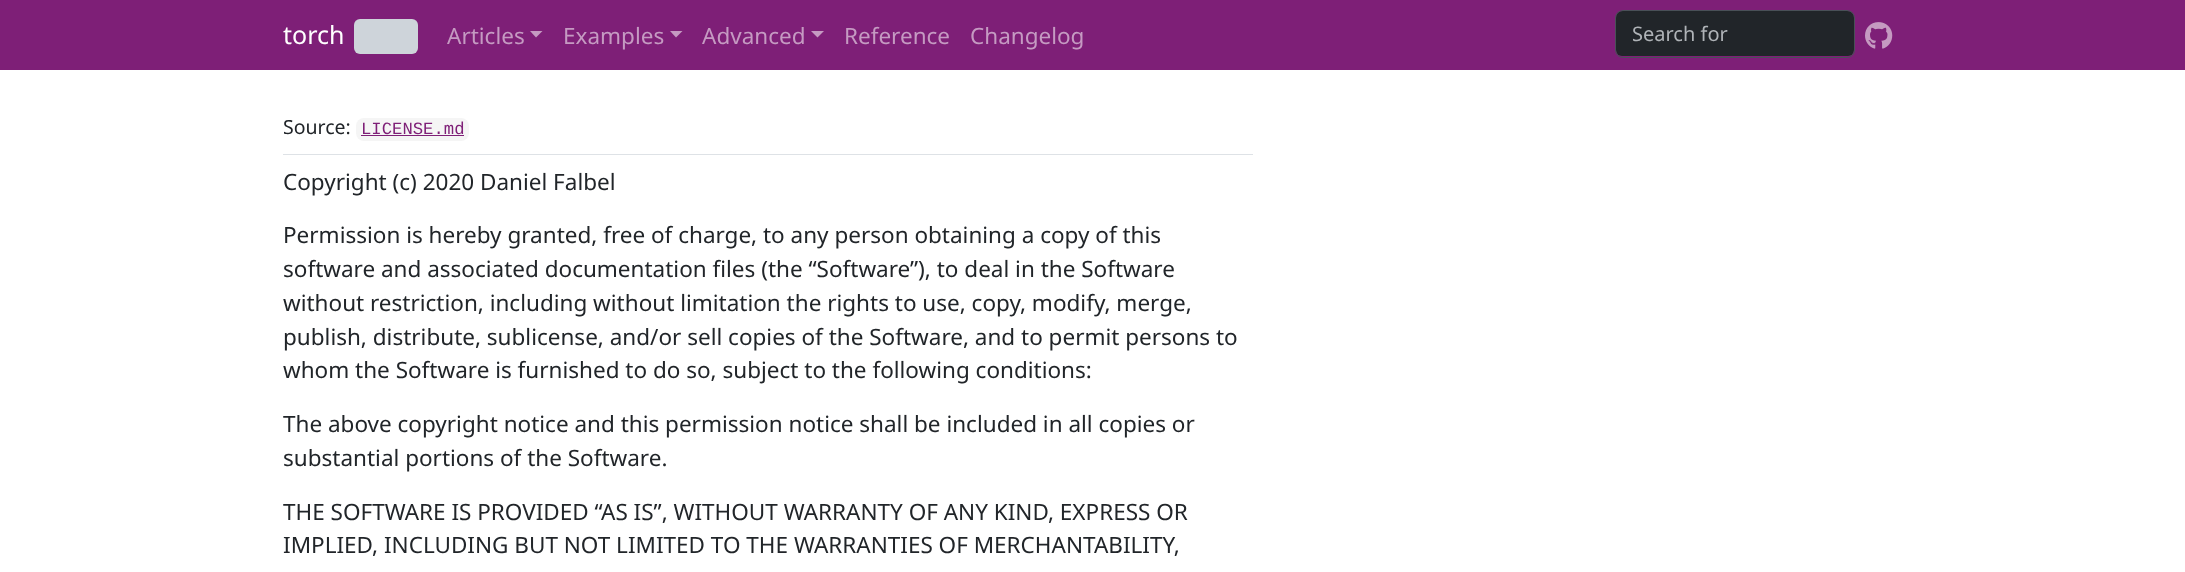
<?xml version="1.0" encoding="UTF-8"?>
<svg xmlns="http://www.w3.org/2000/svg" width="2185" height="572">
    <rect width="100%" height="100%" fill="#FFFFFF"/>
    <rect x="0" y="0" width="2185" height="70" fill="#7E1F77"/>
    <text x="283" y="44" font-family="Noto Sans" font-size="25" fill="#FFFFFF">torch</text>
    <rect x="354" y="19" width="64" height="35" rx="6" fill="#CED4DA"/>
    <text x="447" y="44" font-family="Noto Sans" font-size="22.5" fill="#C59AC2">Articles</text>
    <path d="M 530 31 H 542.5 L 536 37.5 Z" fill="#C59AC2"/>
    <text x="563" y="44" font-family="Noto Sans" font-size="22.5" fill="#C59AC2">Examples</text>
    <path d="M 670 31 H 682.5 L 676 37.5 Z" fill="#C59AC2"/>
    <text x="702" y="44" font-family="Noto Sans" font-size="22.5" fill="#C59AC2">Advanced</text>
    <path d="M 811 31 H 824 L 817.5 37.5 Z" fill="#C59AC2"/>
    <text x="844" y="44" font-family="Noto Sans" font-size="22.5" fill="#C59AC2">Reference</text>
    <text x="970" y="44" font-family="Noto Sans" font-size="22.5" fill="#C59AC2">Changelog</text>
    <rect x="1616" y="11" width="238" height="45" rx="6" fill="#212529"/>
    <rect x="1615.5" y="10.5" width="239" height="47" rx="7.5" fill="none" stroke="#495057"/>
    <text x="1632" y="41" font-family="Noto Sans" font-size="20" fill="#AFB3B7">Search for</text>
    <image x="1865" y="22" width="28" height="27" href="img_01.png"/>
    <rect x="283" y="154" width="970" height="1" fill="#DEE2E6"/>
    <text x="283" y="134" font-family="Noto Sans" font-size="19.5" fill="#212529">Source:</text>
    <rect x="356" y="118" width="113" height="23" rx="8" fill="#F5F5F5"/>
    <text x="361" y="134" font-family="Liberation Mono" font-size="17.25" fill="#7E1F77">LICENSE.md</text>
    <rect x="361" y="135" width="103" height="1" fill="#7E1F77"/>
    <text x="283" y="190" font-family="Noto Sans" font-size="22.5" fill="#212529">Copyright (c) 2020 Daniel Falbel</text>
    <text font-family="Noto Sans" font-size="22.5" fill="#212529">
        <tspan x="283" y="243">Permission is hereby granted, free of charge, to any person obtaining a copy of this</tspan>
        <tspan x="283" y="277">software and associated documentation files (the “Software”), to deal in the Software</tspan>
        <tspan x="283" y="311">without restriction, including without limitation the rights to use, copy, modify, merge,</tspan>
        <tspan x="283" y="345">publish, distribute, sublicense, and/or sell copies of the Software, and to permit persons to</tspan>
        <tspan x="283" y="378">whom the Software is furnished to do so, subject to the following conditions:</tspan>
    </text>
    <text font-family="Noto Sans" font-size="22.5" fill="#212529">
        <tspan x="283" y="432">The above copyright notice and this permission notice shall be included in all copies or</tspan>
        <tspan x="283" y="466">substantial portions of the Software.</tspan>
    </text>
    <text font-family="Noto Sans" font-size="22.5" fill="#212529">
        <tspan x="283" y="520">THE SOFTWARE IS PROVIDED “AS IS”, WITHOUT WARRANTY OF ANY KIND, EXPRESS OR</tspan>
        <tspan x="283" y="553">IMPLIED, INCLUDING BUT NOT LIMITED TO THE WARRANTIES OF MERCHANTABILITY,</tspan>
    </text>
</svg>
